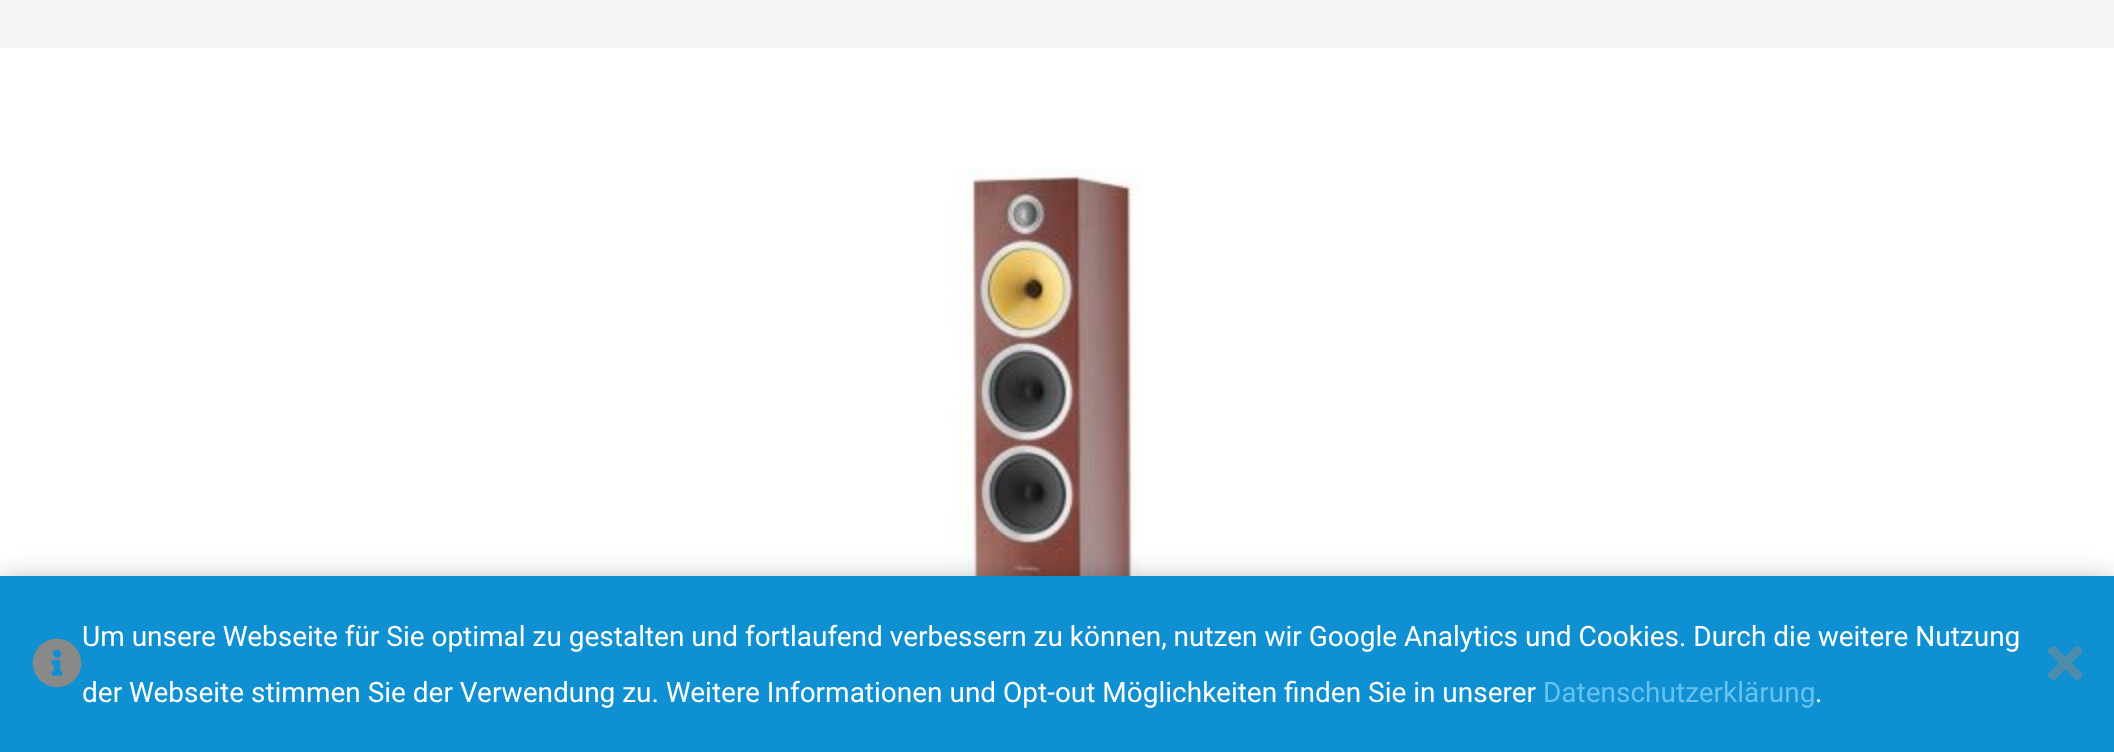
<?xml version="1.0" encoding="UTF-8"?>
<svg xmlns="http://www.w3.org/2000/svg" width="2114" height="752">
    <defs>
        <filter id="blur1" x="-50%" y="-200%" width="200%" height="500%"><feGaussianBlur stdDeviation="15"/></filter>
    </defs>
    <rect width="100%" height="100%" fill="#FFFFFF"/>
    <rect x="0" y="0" width="2114" height="48" fill="#F5F5F5"/>
    <image x="934" y="168" width="240" height="408" href="img_01.png"/>
    <rect x="0" y="584" width="2114" height="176" fill="#000000" fill-opacity="0.4" filter="url(#blur1)"/>
    <rect x="0" y="576" width="2114" height="176" fill="#0E90D2"/>
    <image x="32" y="638" width="50" height="50" href="img_02.png"/>
    <text x="82" y="646" font-family="Roboto" font-size="28" fill="#FFFFFF">Um unsere Webseite für Sie optimal zu gestalten und fortlaufend verbessern zu können, nutzen wir Google Analytics und Cookies. Durch die weitere Nutzung</text>
    <text x="82" y="702" font-family="Roboto" font-size="28" fill="#FFFFFF">der Webseite stimmen Sie der Verwendung zu. Weitere Informationen und Opt-out Möglichkeiten finden Sie in unserer</text>
    <text x="1543" y="702" font-family="Roboto" font-size="28" fill="#67C2F0">Datenschutzerklärung</text>
    <text x="1815" y="702" font-family="Roboto" font-size="28" fill="#FFFFFF">.</text>
    <image x="2048" y="645" width="34" height="36" href="img_03.png"/>
</svg>
